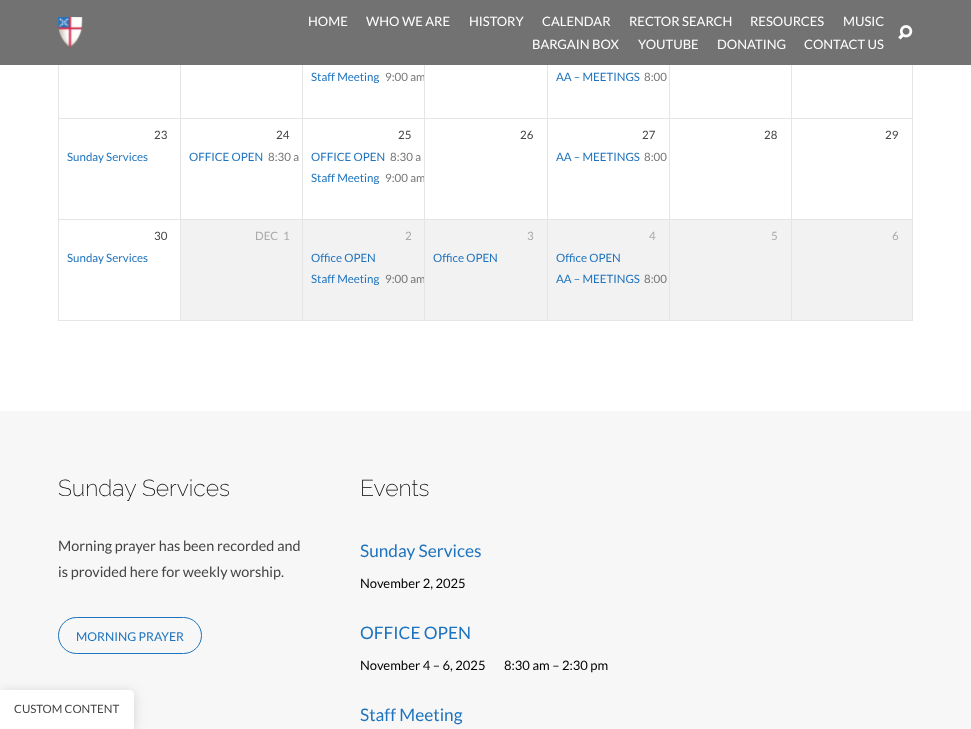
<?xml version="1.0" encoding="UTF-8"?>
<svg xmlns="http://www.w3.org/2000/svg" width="971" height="729">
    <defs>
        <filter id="blur1" x="-50%" y="-200%" width="200%" height="500%"><feGaussianBlur stdDeviation="6"/></filter>
    </defs>
    <rect width="100%" height="100%" fill="#FFFFFF"/>
    <rect x="0" y="0" width="971" height="65" fill="#727272"/>
    <image x="58" y="17" width="25" height="31" href="img_01.png"/>
    <text x="308" y="26" font-family="Lato" font-size="13" fill="#FFFFFF">HOME</text>
    <text x="366" y="26" font-family="Lato" font-size="13" fill="#FFFFFF">WHO WE ARE</text>
    <text x="469" y="26" font-family="Lato" font-size="13" fill="#FFFFFF">HISTORY</text>
    <text x="542" y="26" font-family="Lato" font-size="13" fill="#FFFFFF">CALENDAR</text>
    <text x="629" y="26" font-family="Lato" font-size="13" fill="#FFFFFF">RECTOR SEARCH</text>
    <text x="750" y="26" font-family="Lato" font-size="13" fill="#FFFFFF">RESOURCES</text>
    <text x="843" y="26" font-family="Lato" font-size="13" fill="#FFFFFF">MUSIC</text>
    <text x="532" y="49" font-family="Lato" font-size="13" fill="#FFFFFF">BARGAIN BOX</text>
    <text x="638" y="49" font-family="Lato" font-size="13" fill="#FFFFFF">YOUTUBE</text>
    <text x="717" y="49" font-family="Lato" font-size="13" fill="#FFFFFF">DONATING</text>
    <text x="804" y="49" font-family="Lato" font-size="13" fill="#FFFFFF">CONTACT US</text>
    <image x="898" y="25" width="15" height="15" href="img_02.png"/>
    <rect x="58" y="118" width="733" height="1" fill="#E5E5E5"/>
    <rect x="58" y="65" width="1" height="54" fill="#E5E5E5"/>
    <rect x="180" y="65" width="1" height="54" fill="#E5E5E5"/>
    <rect x="302" y="65" width="1" height="54" fill="#E5E5E5"/>
    <text x="311" y="81" font-family="Lato" font-size="11.5" fill="#1E73BE">Staff Meeting</text>
    <text x="385" y="81" font-family="Lato" font-size="11.5" fill="#777777">9:00 am</text>
    <rect x="424" y="65" width="1" height="54" fill="#E5E5E5"/>
    <rect x="547" y="65" width="1" height="54" fill="#E5E5E5"/>
    <text x="556" y="81" font-family="Lato" font-size="11.5" fill="#1E73BE">AA – MEETINGS</text>
    <text x="644" y="81" font-family="Lato" font-size="11.5" fill="#777777">8:00</text>
    <rect x="669" y="65" width="1" height="54" fill="#E5E5E5"/>
    <rect x="912" y="65" width="1" height="256" fill="#E5E5E5"/>
    <rect x="791" y="118" width="122" height="1" fill="#E5E5E5"/>
    <rect x="791" y="65" width="1" height="54" fill="#E5E5E5"/>
    <rect x="58" y="219" width="855" height="1" fill="#E5E5E5"/>
    <rect x="58" y="119" width="1" height="101" fill="#E5E5E5"/>
    <text x="154" y="139" font-family="Lato" font-size="11.5" fill="#444444">23</text>
    <text x="67" y="161" font-family="Lato" font-size="11.5" fill="#1E73BE">Sunday Services</text>
    <rect x="180" y="119" width="1" height="101" fill="#E5E5E5"/>
    <text x="276" y="139" font-family="Lato" font-size="11.5" fill="#444444">24</text>
    <text x="189" y="161" font-family="Lato" font-size="11.5" fill="#1E73BE">OFFICE OPEN</text>
    <text x="268" y="161" font-family="Lato" font-size="11.5" fill="#777777">8:30 a</text>
    <rect x="302" y="119" width="1" height="101" fill="#E5E5E5"/>
    <text x="398" y="139" font-family="Lato" font-size="11.5" fill="#444444">25</text>
    <text x="311" y="161" font-family="Lato" font-size="11.5" fill="#1E73BE">OFFICE OPEN</text>
    <text x="390" y="161" font-family="Lato" font-size="11.5" fill="#777777">8:30 a</text>
    <text x="311" y="182" font-family="Lato" font-size="11.5" fill="#1E73BE">Staff Meeting</text>
    <text x="385" y="182" font-family="Lato" font-size="11.5" fill="#777777">9:00 am</text>
    <rect x="424" y="119" width="1" height="101" fill="#E5E5E5"/>
    <text x="520" y="139" font-family="Lato" font-size="11.5" fill="#444444">26</text>
    <rect x="547" y="119" width="1" height="101" fill="#E5E5E5"/>
    <text x="642" y="139" font-family="Lato" font-size="11.5" fill="#444444">27</text>
    <text x="556" y="161" font-family="Lato" font-size="11.5" fill="#1E73BE">AA – MEETINGS</text>
    <text x="644" y="161" font-family="Lato" font-size="11.5" fill="#777777">8:00</text>
    <rect x="669" y="119" width="1" height="101" fill="#E5E5E5"/>
    <text x="764" y="139" font-family="Lato" font-size="11.5" fill="#444444">28</text>
    <rect x="791" y="119" width="1" height="101" fill="#E5E5E5"/>
    <text x="885" y="139" font-family="Lato" font-size="11.5" fill="#444444">29</text>
    <rect x="58" y="320" width="855" height="1" fill="#E5E5E5"/>
    <rect x="58" y="220" width="1" height="101" fill="#E5E5E5"/>
    <text x="154" y="240" font-family="Lato" font-size="11.5" fill="#444444">30</text>
    <text x="67" y="262" font-family="Lato" font-size="11.5" fill="#1E73BE">Sunday Services</text>
    <rect x="181" y="220" width="121" height="100" fill="#F2F2F2"/>
    <rect x="180" y="220" width="1" height="101" fill="#E5E5E5"/>
    <text x="255" y="240" font-family="Lato" font-size="11.5" fill="#AAAAAA">DEC</text>
    <text x="283" y="240" font-family="Lato" font-size="11.5" fill="#AAAAAA">1</text>
    <rect x="303" y="220" width="121" height="100" fill="#F2F2F2"/>
    <rect x="302" y="220" width="1" height="101" fill="#E5E5E5"/>
    <text x="405" y="240" font-family="Lato" font-size="11.5" fill="#AAAAAA">2</text>
    <text font-family="Lato" font-size="11.5" fill="#1E73BE">
        <tspan x="311" y="262">Office OPEN</tspan>
        <tspan x="311" y="283">Staff Meeting</tspan>
    </text>
    <text x="385" y="283" font-family="Lato" font-size="11.5" fill="#777777">9:00 am</text>
    <rect x="425" y="220" width="122" height="100" fill="#F2F2F2"/>
    <rect x="424" y="220" width="1" height="101" fill="#E5E5E5"/>
    <text x="527" y="240" font-family="Lato" font-size="11.5" fill="#AAAAAA">3</text>
    <text x="433" y="262" font-family="Lato" font-size="11.5" fill="#1E73BE">Office OPEN</text>
    <rect x="548" y="220" width="121" height="100" fill="#F2F2F2"/>
    <rect x="547" y="220" width="1" height="101" fill="#E5E5E5"/>
    <text x="649" y="240" font-family="Lato" font-size="11.5" fill="#AAAAAA">4</text>
    <text font-family="Lato" font-size="11.5" fill="#1E73BE">
        <tspan x="556" y="262">Office OPEN</tspan>
        <tspan x="556" y="283">AA – MEETINGS</tspan>
    </text>
    <text x="644" y="283" font-family="Lato" font-size="11.5" fill="#777777">8:00</text>
    <rect x="670" y="220" width="121" height="100" fill="#F2F2F2"/>
    <rect x="669" y="220" width="1" height="101" fill="#E5E5E5"/>
    <text x="771" y="240" font-family="Lato" font-size="11.5" fill="#AAAAAA">5</text>
    <rect x="792" y="220" width="120" height="100" fill="#F2F2F2"/>
    <rect x="791" y="220" width="1" height="101" fill="#E5E5E5"/>
    <text x="892" y="240" font-family="Lato" font-size="11.5" fill="#AAAAAA">6</text>
    <rect x="0" y="411" width="971" height="318" fill="#F7F7F7"/>
    <text x="58" y="496" font-family="Raleway" font-size="23" font-weight="200" fill="#000000">Sunday Services</text>
    <text font-family="Lato" font-size="14.4" fill="#444444">
        <tspan x="58" y="551">Morning prayer has been recorded and</tspan>
        <tspan x="58" y="577">is provided here for weekly worship.</tspan>
    </text>
    <rect x="58.5" y="617.5" width="143" height="36" rx="18" fill="none" stroke="#1E73BE"/>
    <text x="76" y="641" font-family="Lato" font-size="12.25" fill="#1E73BE">MORNING PRAYER</text>
    <text x="360" y="496" font-family="Raleway" font-size="23" font-weight="200" fill="#000000">Events</text>
    <text x="360" y="557" font-family="Lato" font-size="17.25" fill="#1E73BE">Sunday Services</text>
    <text x="360" y="588" font-family="Lato" font-size="13" fill="#000000">November 2, 2025</text>
    <text x="360" y="639" font-family="Lato" font-size="17.25" fill="#1E73BE">OFFICE OPEN</text>
    <text x="360" y="670" font-family="Lato" font-size="13" fill="#000000">November 4 – 6, 2025</text>
    <text x="504" y="670" font-family="Lato" font-size="13" fill="#000000">8:30 am – 2:30 pm</text>
    <text x="360" y="721" font-family="Lato" font-size="17.25" fill="#1E73BE">Staff Meeting</text>
    <rect x="0" y="692" width="134" height="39" rx="4" fill="#000000" fill-opacity="0.15" filter="url(#blur1)"/>
    <path d="M 0 690 H 130 C 132 690 134 692 134 694 V 729 H 0 Z" fill="#FFFFFF"/>
    <text x="14" y="713" font-family="Lato" font-size="11.5" fill="#444444">CUSTOM CONTENT</text>
</svg>
